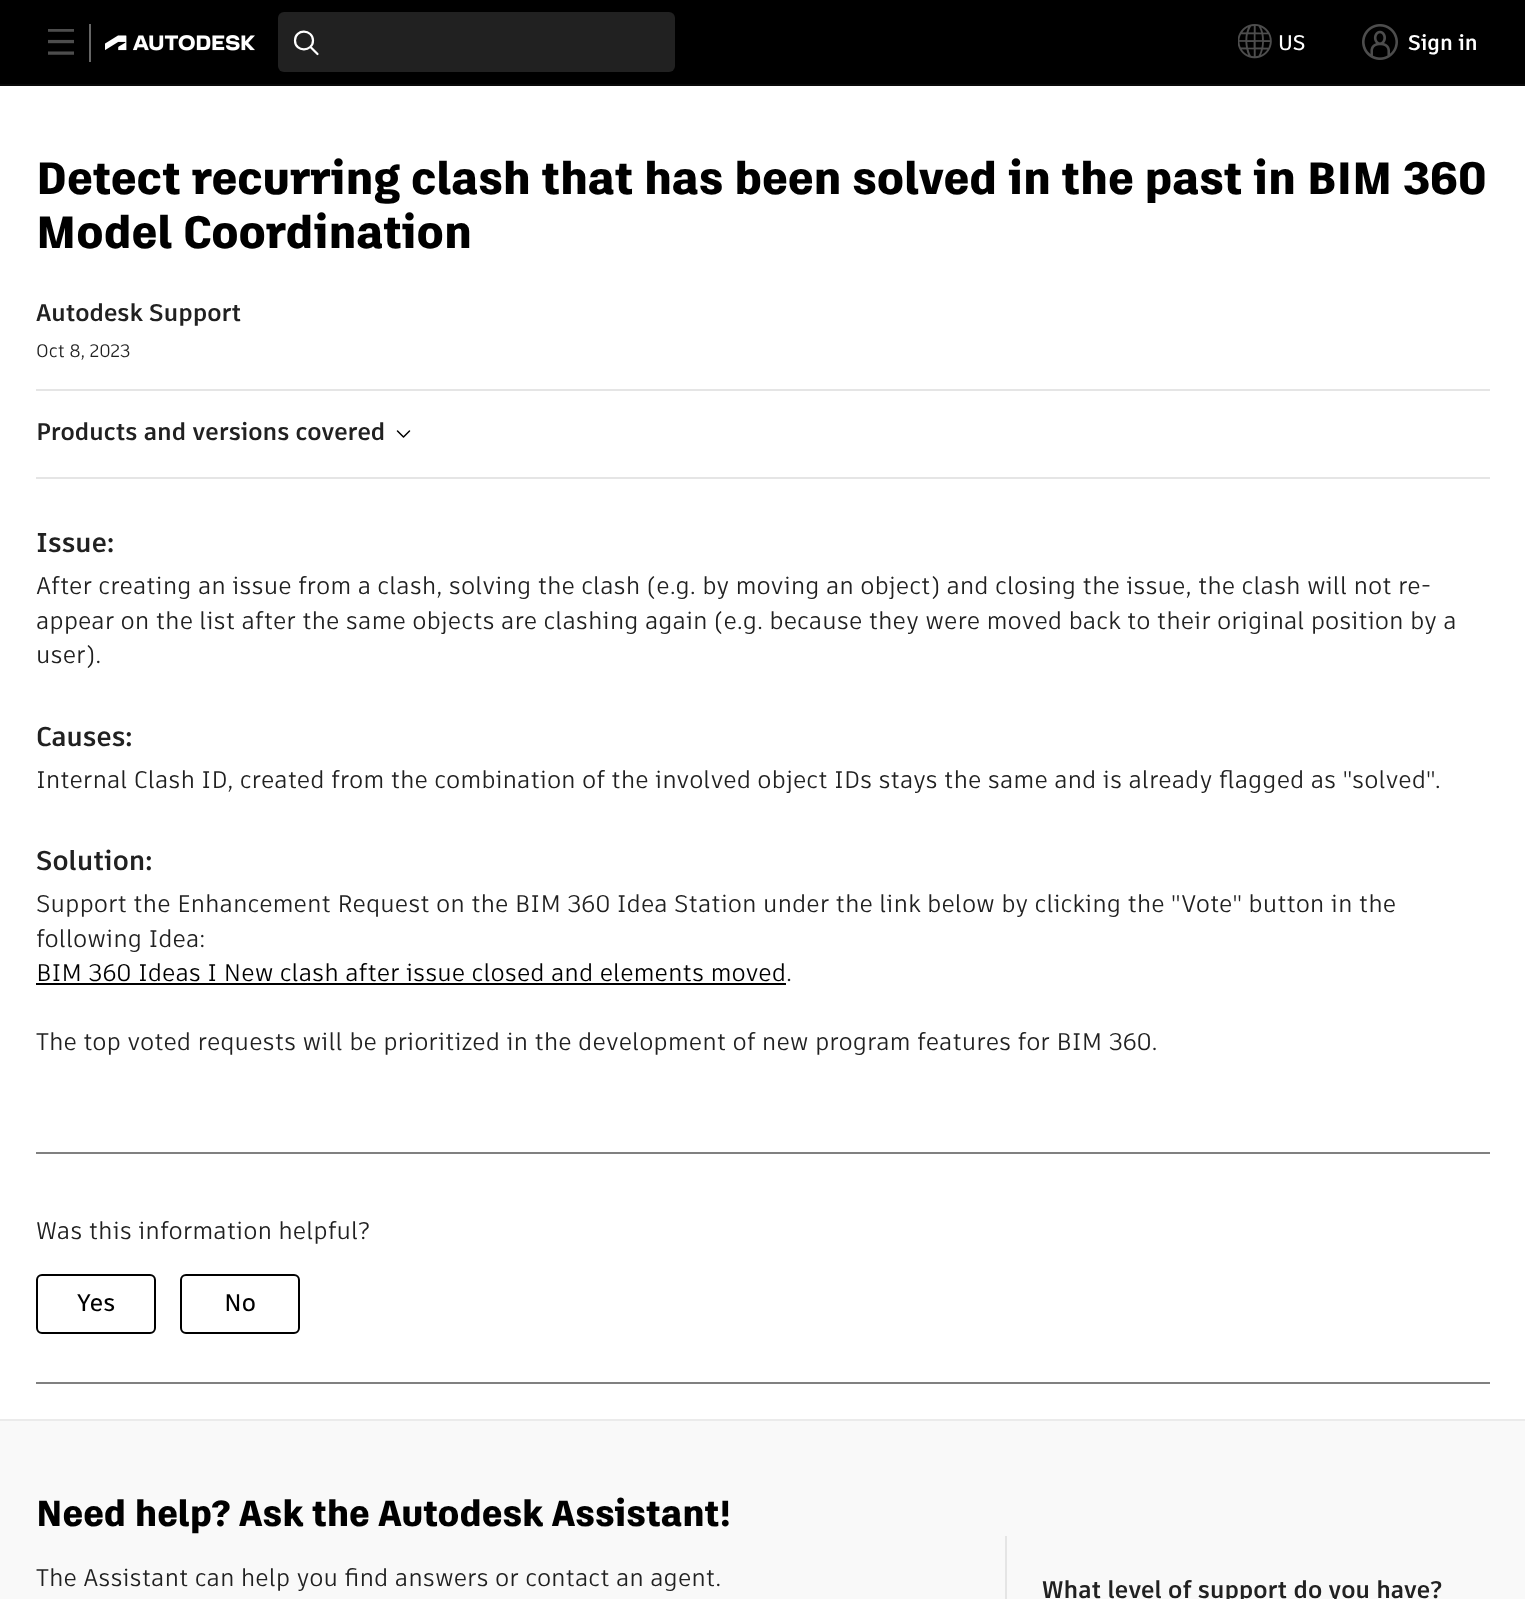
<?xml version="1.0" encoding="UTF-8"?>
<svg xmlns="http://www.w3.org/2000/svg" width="1525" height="1599">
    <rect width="100%" height="100%" fill="#FFFFFF"/>
    <rect x="0" y="0" width="1525" height="84" fill="#000000"/>
    <rect x="0" y="84" width="1525" height="2" fill="#0A0A0A"/>
    <image x="48" y="29" width="26" height="26" href="img_01.png"/>
    <rect x="89" y="24" width="2" height="38" fill="#666666"/>
    <image x="105" y="35" width="150" height="16" href="img_02.png"/>
    <rect x="278" y="12" width="397" height="60" rx="6" fill="#212121"/>
    <path d="M 310.5 47 L 317.5 54 M 313 40.5 C 313 52 295 52.5 295 40.5 C 295 28.5 313 29 313 40.5 Z" fill="none" stroke="#FFFFFF" stroke-width="2.2" stroke-linecap="round"/>
    <image x="1238" y="24" width="34" height="35" href="img_03.png"/>
    <text x="1278" y="50" font-family="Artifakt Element" font-size="21" font-weight="600" fill="#FFFFFF">US</text>
    <image x="1362" y="24" width="36" height="36" href="img_04.png"/>
    <text x="1408" y="50" font-family="Artifakt Element" font-size="21" font-weight="700" fill="#FFFFFF">Sign in</text>
    <text font-family="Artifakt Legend" font-size="45.1" font-weight="800" fill="#000000">
        <tspan x="36" y="194">Detect recurring clash that has been solved in the past in BIM 360</tspan>
        <tspan x="36" y="248">Model Coordination</tspan>
    </text>
    <text x="36" y="321" font-family="Artifakt Element" font-size="24" font-weight="700" fill="#212121">Autodesk Support</text>
    <text x="36" y="357" font-family="Artifakt Element" font-size="18" fill="#212121">Oct 8, 2023</text>
    <rect x="36" y="389" width="1454" height="2" fill="#E5E5E5"/>
    <text x="36" y="440" font-family="Artifakt Element" font-size="24" font-weight="700" fill="#212121">Products and versions covered</text>
    <path d="M 409.5 431 L 403.5 437 L 397.5 431" fill="none" stroke="#000000" stroke-width="1.5" stroke-linecap="round" stroke-linejoin="round"/>
    <rect x="36" y="477" width="1454" height="2" fill="#E5E5E5"/>
    <text x="36" y="552" font-family="Artifakt Element" font-size="27" font-weight="700" fill="#212121">Issue:</text>
    <text font-family="Artifakt Element" font-size="24" fill="#212121">
        <tspan x="36" y="594">After creating an issue from a clash, solving the clash (e.g. by moving an object) and closing the issue, the clash will not re-</tspan>
        <tspan x="36" y="629">appear on the list after the same objects are clashing again (e.g. because they were moved back to their original position by a</tspan>
        <tspan x="36" y="663">user).</tspan>
    </text>
    <text x="36" y="746" font-family="Artifakt Element" font-size="27" font-weight="700" fill="#212121">Causes:</text>
    <text x="36" y="788" font-family="Artifakt Element" font-size="24" fill="#212121">Internal Clash ID, created from the combination of the involved object IDs stays the same and is already flagged as "solved".</text>
    <text x="36" y="870" font-family="Artifakt Element" font-size="27" font-weight="700" fill="#212121">Solution:</text>
    <text font-family="Artifakt Element" font-size="24" fill="#212121">
        <tspan x="36" y="912">Support the Enhancement Request on the BIM 360 Idea Station under the link below by clicking the "Vote" button in the</tspan>
        <tspan x="36" y="947">following Idea:</tspan>
    </text>
    <text x="36" y="981" font-family="Artifakt Element" font-size="24" fill="#000000">BIM 360 Ideas I New clash after issue closed and elements moved</text>
    <rect x="36" y="983" width="750" height="2" fill="#000000"/>
    <text x="786" y="981" font-family="Artifakt Element" font-size="24" fill="#212121">.</text>
    <text x="36" y="1050" font-family="Artifakt Element" font-size="24" fill="#212121">The top voted requests will be prioritized in the development of new program features for BIM 360.</text>
    <rect x="36" y="1152" width="1454" height="2" fill="#808080"/>
    <text x="36" y="1239" font-family="Artifakt Element" font-size="24" fill="#212121">Was this information helpful?</text>
    <rect x="37" y="1275" width="118" height="58" rx="5" fill="none" stroke="#000000" stroke-width="2"/>
    <text x="77" y="1311" font-family="Artifakt Element" font-size="24" font-weight="600" fill="#000000">Yes</text>
    <rect x="181" y="1275" width="118" height="58" rx="5" fill="none" stroke="#000000" stroke-width="2"/>
    <text x="224" y="1311" font-family="Artifakt Element" font-size="24" font-weight="600" fill="#000000">No</text>
    <rect x="36" y="1382" width="1454" height="2" fill="#808080"/>
    <rect x="0" y="1419" width="1525" height="2" fill="#EBEBEB"/>
    <rect x="0" y="1421" width="1525" height="178" fill="#F9F9F9"/>
    <text x="36" y="1526" font-family="Artifakt Legend" font-size="36.1" font-weight="800" fill="#000000">Need help? Ask the Autodesk Assistant!</text>
    <text x="36" y="1586" font-family="Artifakt Element" font-size="24" fill="#212121">The Assistant can help you find answers or contact an agent.</text>
    <rect x="1005" y="1536" width="2" height="63" fill="#E5E5E5"/>
    <text x="1042" y="1598" font-family="Artifakt Element" font-size="24" font-weight="700" fill="#212121">What level of support do you have?</text>
</svg>
